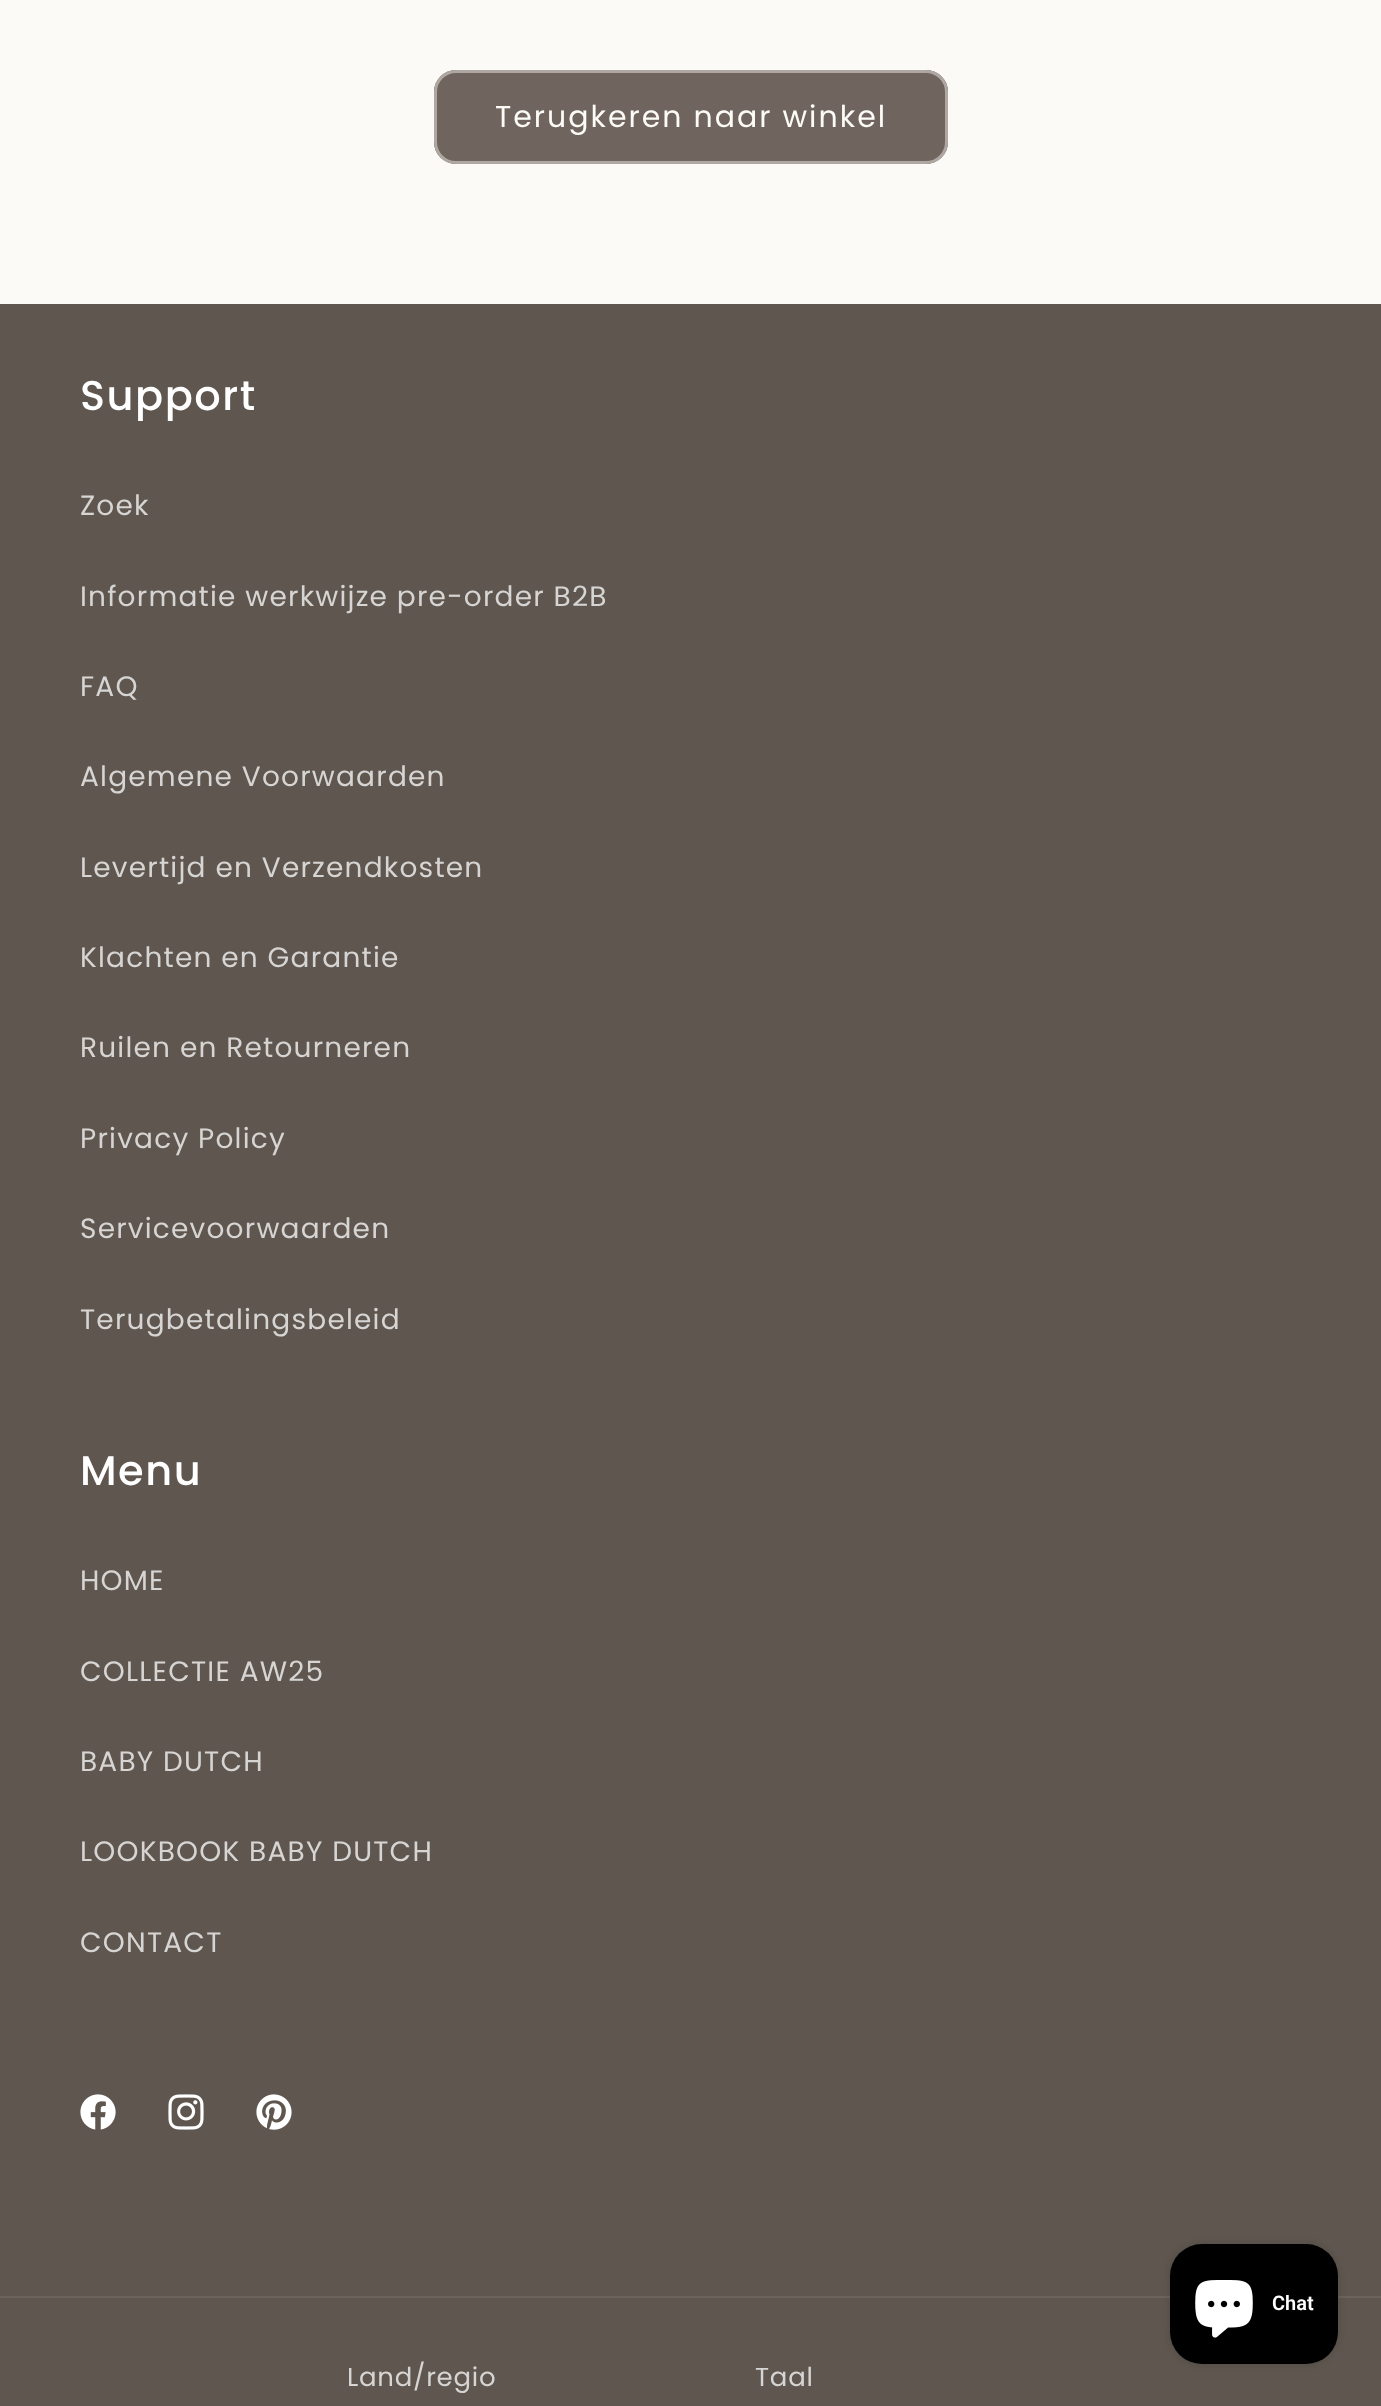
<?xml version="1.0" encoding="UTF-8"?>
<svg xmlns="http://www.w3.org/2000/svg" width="1381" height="2406">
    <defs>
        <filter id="blur1" x="-50%" y="-200%" width="200%" height="500%"><feGaussianBlur stdDeviation="5"/></filter>
    </defs>
    <rect width="100%" height="100%" fill="#FCFAF7"/>
    <rect x="434" y="70" width="514" height="94" rx="22" fill="#70655E"/>
    <rect x="435" y="71" width="512" height="92" rx="21" fill="none" stroke="#70655E" stroke-width="2"/>
    <rect x="435.5" y="71.5" width="511" height="91" rx="20.5" fill="none" stroke="#FDFBF7" stroke-opacity="0.45" stroke-width="3"/>
    <text x="495" y="127" font-family="Poppins" font-size="30" letter-spacing="2" fill="#FDFBF7">Terugkeren naar winkel</text>
    <rect x="0" y="304" width="1381" height="2102" fill="#5E564F"/>
    <text x="80" y="410" font-family="Poppins" font-size="41.5" font-weight="500" letter-spacing="1.5" fill="#FFFFFF">Support</text>
    <text x="80" y="515" font-family="Poppins" font-size="28" letter-spacing="1.2" fill="#D7D5D3">Zoek</text>
    <text x="80" y="606" font-family="Poppins" font-size="28" letter-spacing="1.2" fill="#D7D5D3">Informatie werkwijze pre-order B2B</text>
    <text x="80" y="696" font-family="Poppins" font-size="28" letter-spacing="1.2" fill="#D7D5D3">FAQ</text>
    <text x="80" y="786" font-family="Poppins" font-size="28" letter-spacing="1.2" fill="#D7D5D3">Algemene Voorwaarden</text>
    <text x="80" y="877" font-family="Poppins" font-size="28" letter-spacing="1.2" fill="#D7D5D3">Levertijd en Verzendkosten</text>
    <text x="80" y="967" font-family="Poppins" font-size="28" letter-spacing="1.2" fill="#D7D5D3">Klachten en Garantie</text>
    <text x="80" y="1057" font-family="Poppins" font-size="28" letter-spacing="1.2" fill="#D7D5D3">Ruilen en Retourneren</text>
    <text x="80" y="1148" font-family="Poppins" font-size="28" letter-spacing="1.2" fill="#D7D5D3">Privacy Policy</text>
    <text x="80" y="1238" font-family="Poppins" font-size="28" letter-spacing="1.2" fill="#D7D5D3">Servicevoorwaarden</text>
    <text x="80" y="1329" font-family="Poppins" font-size="28" letter-spacing="1.2" fill="#D7D5D3">Terugbetalingsbeleid</text>
    <text x="80" y="1485" font-family="Poppins" font-size="41.5" font-weight="500" letter-spacing="1.5" fill="#FFFFFF">Menu</text>
    <text x="80" y="1590" font-family="Poppins" font-size="28" letter-spacing="1.2" fill="#D7D5D3">HOME</text>
    <text x="80" y="1681" font-family="Poppins" font-size="28" letter-spacing="1.2" fill="#D7D5D3">COLLECTIE AW25</text>
    <text x="80" y="1771" font-family="Poppins" font-size="28" letter-spacing="1.2" fill="#D7D5D3">BABY DUTCH</text>
    <text x="80" y="1861" font-family="Poppins" font-size="28" letter-spacing="1.2" fill="#D7D5D3">LOOKBOOK BABY DUTCH</text>
    <text x="80" y="1952" font-family="Poppins" font-size="28" letter-spacing="1.2" fill="#D7D5D3">CONTACT</text>
    <image x="80" y="2094" width="36" height="36" href="img_01.png"/>
    <image x="168" y="2094" width="36" height="36" href="img_02.png"/>
    <image x="256" y="2094" width="36" height="36" href="img_03.png"/>
    <rect x="0" y="2296" width="1381" height="2" fill="#6B645D"/>
    <text x="347" y="2386" font-family="Poppins" font-size="26" letter-spacing="0.75" fill="#D7D5D3">Land/regio</text>
    <text x="755" y="2386" font-family="Poppins" font-size="26" letter-spacing="0.75" fill="#D7D5D3">Taal</text>
    <rect x="1170" y="2244" width="168" height="120" rx="32" fill="#000000" fill-opacity="0.15" filter="url(#blur1)"/>
    <rect x="1170" y="2244" width="168" height="120" rx="32" fill="#000000"/>
    <image x="1195" y="2280" width="58" height="58" href="img_04.png"/>
    <text x="1272" y="2310" font-family="Roboto" font-size="20" font-weight="600" fill="#FFFFFF">Chat</text>
</svg>
